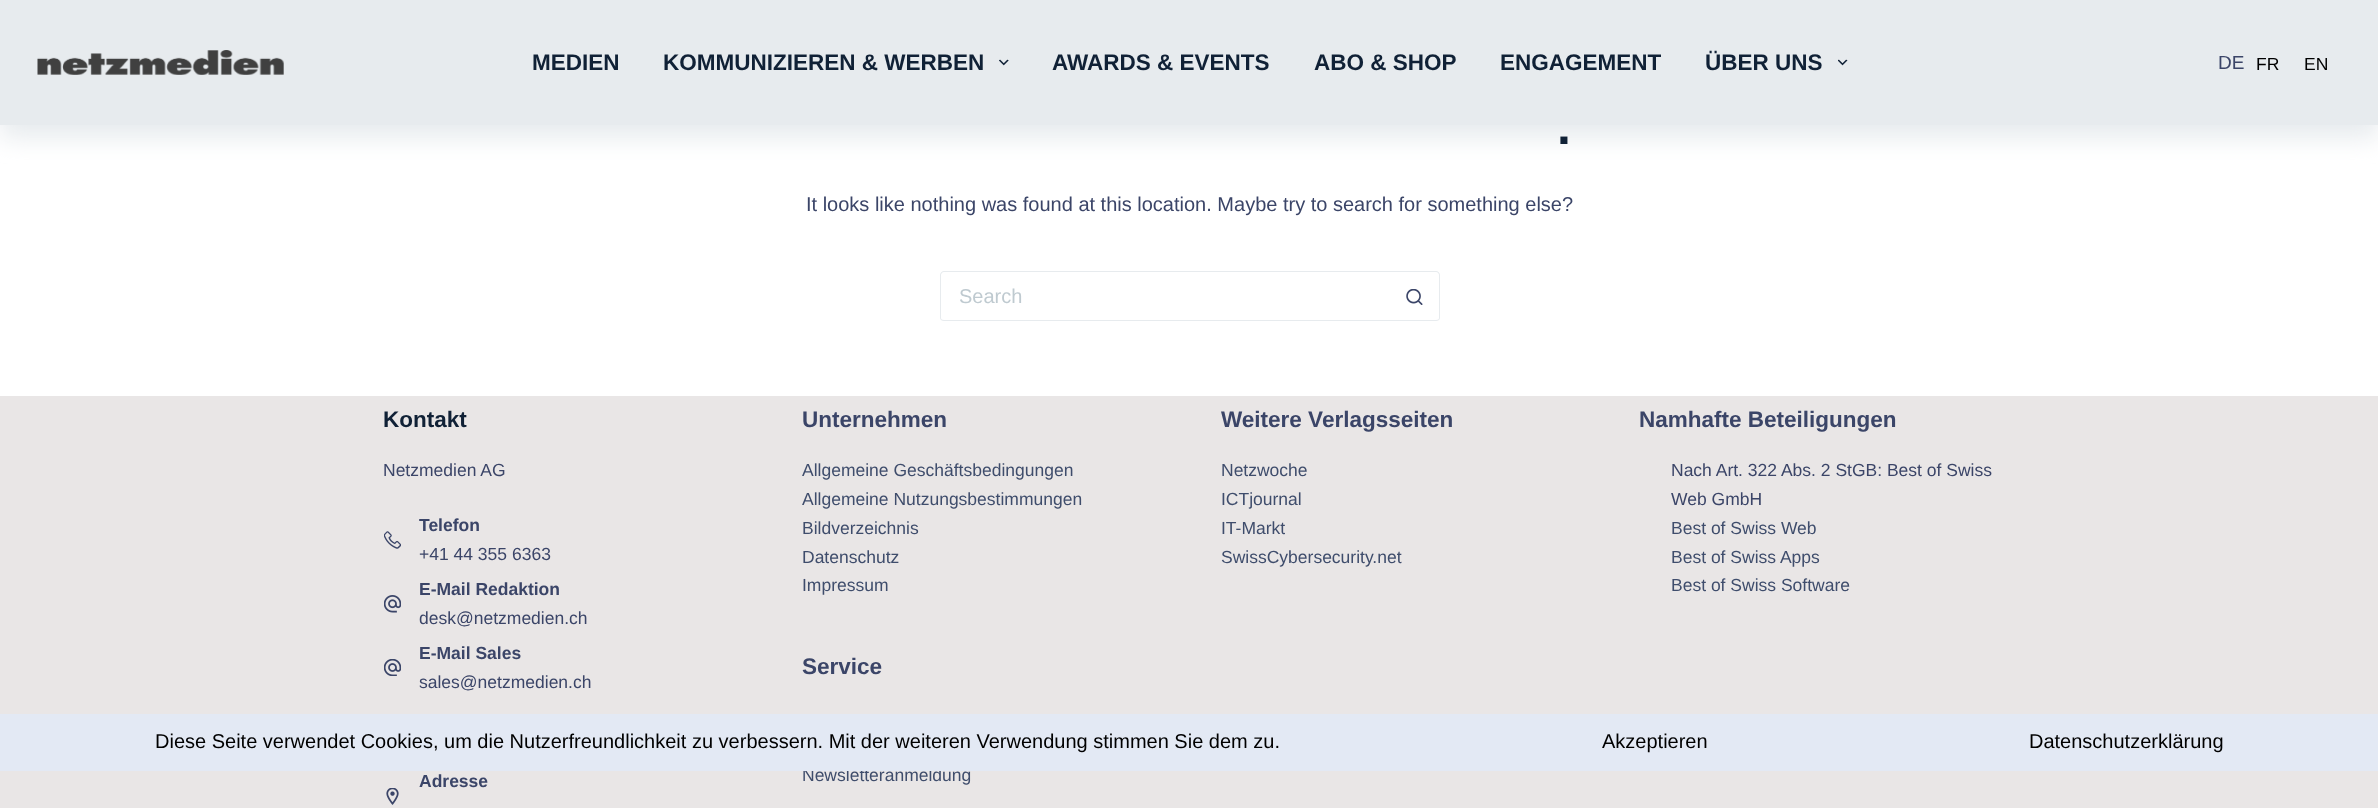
<?xml version="1.0" encoding="UTF-8"?>
<svg xmlns="http://www.w3.org/2000/svg" width="2378" height="808">
    <defs>
        <clipPath id="clip1"><rect x="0" y="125" width="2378" height="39"/></clipPath>
        <filter id="blur1" x="-50%" y="-200%" width="200%" height="500%"><feGaussianBlur stdDeviation="12.5"/></filter>
    </defs>
    <rect width="100%" height="100%" fill="#FFFFFF"/>
    <rect x="0" y="0" width="2378" height="125" fill="#E7EBEE"/>
    <g clip-path="url(#clip1)">
        <rect x="0" y="13" width="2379" height="125" fill="#E7EBEE" filter="url(#blur1)"/>
    </g>
    <image x="37" y="50" width="247" height="25" href="img_01.png"/>
    <text x="532" y="70" font-family="Liberation Sans" font-size="22.5" font-weight="700" fill="#102136">MEDIEN</text>
    <text x="663" y="70" font-family="Liberation Sans" font-size="22.5" font-weight="700" fill="#102136">KOMMUNIZIEREN &amp; WERBEN</text>
    <image x="999" y="59" width="10" height="7" href="img_02.png"/>
    <text x="1052" y="70" font-family="Liberation Sans" font-size="22.5" font-weight="700" fill="#102136">AWARDS &amp; EVENTS</text>
    <text x="1314" y="70" font-family="Liberation Sans" font-size="22.5" font-weight="700" fill="#102136">ABO &amp; SHOP</text>
    <text x="1500" y="70" font-family="Liberation Sans" font-size="22.5" font-weight="700" fill="#102136">ENGAGEMENT</text>
    <text x="1705" y="70" font-family="Liberation Sans" font-size="22.5" font-weight="700" fill="#102136">ÜBER UNS</text>
    <image x="1838" y="59" width="10" height="7" href="img_03.png"/>
    <text x="2218" y="69" font-family="Liberation Sans" font-size="19" fill="#3B4568">DE</text>
    <text x="2256" y="70" font-family="Liberation Sans" font-size="17.5" fill="#000000">FR</text>
    <text x="2304" y="70" font-family="Liberation Sans" font-size="17.5" fill="#000000">EN</text>
    <text x="1557" y="144" font-family="Liberation Sans" font-size="50" font-weight="700" fill="#102136">.</text>
    <text x="806" y="211" font-family="Liberation Sans" font-size="20" fill="#3B4568">It looks like nothing was found at this location. Maybe try to search for something else?</text>
    <path d="M 944 271 H 1390 V 321 H 944 C 942 321 940 320 940 318 V 275 C 940 273 942 271 944 271 Z M 944 272 H 1390 V 320 H 944 C 942 320 941 319 941 318 V 275 C 941 274 942 272 944 272 Z" fill="#E7EBEE" fill-rule="evenodd"/>
    <text x="959" y="303" font-family="Liberation Sans" font-size="20" fill="#BFCAD0">Search</text>
    <path d="M 1390 271 H 1436 C 1438 271 1440 273 1440 275 V 318 C 1440 320 1438 321 1436 321 H 1390 Z M 1390 272 H 1436 C 1438 272 1439 274 1439 275 V 318 C 1439 319 1438 320 1436 320 H 1390 Z" fill="#E7EBEE" fill-rule="evenodd"/>
    <image x="1406" y="289" width="17" height="16" href="img_04.png"/>
    <rect x="0" y="396" width="2378" height="412" fill="#E9E6E6"/>
    <text x="383" y="427" font-family="Liberation Sans" font-size="22.5" font-weight="700" fill="#102136">Kontakt</text>
    <text x="383" y="476" font-family="Liberation Sans" font-size="17.5" fill="#3B4568">Netzmedien AG</text>
    <image x="384" y="531" width="17" height="18" href="img_05.png"/>
    <text x="419" y="531" font-family="Liberation Sans" font-size="17.5" font-weight="700" fill="#3B4568">Telefon</text>
    <text x="419" y="560" font-family="Liberation Sans" font-size="17.5" fill="#3B4568">+41 44 355 6363</text>
    <image x="384" y="595" width="17" height="18" href="img_06.png"/>
    <text x="419" y="595" font-family="Liberation Sans" font-size="17.5" font-weight="700" fill="#3B4568">E-Mail Redaktion</text>
    <text x="419" y="624" font-family="Liberation Sans" font-size="17.5" fill="#3B4568">desk@netzmedien.ch</text>
    <image x="384" y="659" width="17" height="17" href="img_07.png"/>
    <text x="419" y="659" font-family="Liberation Sans" font-size="17.5" font-weight="700" fill="#3B4568">E-Mail Sales</text>
    <text x="419" y="688" font-family="Liberation Sans" font-size="17.5" fill="#3B4568">sales@netzmedien.ch</text>
    <text x="419" y="787" font-family="Liberation Sans" font-size="17.5" font-weight="700" fill="#3B4568">Adresse</text>
    <image x="386" y="788" width="13" height="17" href="img_08.png"/>
    <text x="802" y="427" font-family="Liberation Sans" font-size="22.5" font-weight="700" fill="#3B4568">Unternehmen</text>
    <text font-family="Liberation Sans" font-size="17.5" fill="#3F4D6C">
        <tspan x="802" y="476">Allgemeine Geschäftsbedingungen</tspan>
        <tspan x="802" y="505">Allgemeine Nutzungsbestimmungen</tspan>
        <tspan x="802" y="534">Bildverzeichnis</tspan>
        <tspan x="802" y="563">Datenschutz</tspan>
        <tspan x="802" y="591">Impressum</tspan>
    </text>
    <text x="802" y="674" font-family="Liberation Sans" font-size="22.5" font-weight="700" fill="#3B4568">Service</text>
    <text x="802" y="781" font-family="Liberation Sans" font-size="17.5" fill="#3F4D6C">Newsletteranmeldung</text>
    <text x="1221" y="427" font-family="Liberation Sans" font-size="22.5" font-weight="700" fill="#3B4568">Weitere Verlagsseiten</text>
    <text font-family="Liberation Sans" font-size="17.5" fill="#3F4D6C">
        <tspan x="1221" y="476">Netzwoche</tspan>
        <tspan x="1221" y="505">ICTjournal</tspan>
        <tspan x="1221" y="534">IT-Markt</tspan>
        <tspan x="1221" y="563">SwissCybersecurity.net</tspan>
    </text>
    <text x="1639" y="427" font-family="Liberation Sans" font-size="22.5" font-weight="700" fill="#3B4568">Namhafte Beteiligungen</text>
    <text font-family="Liberation Sans" font-size="17.5" fill="#3B4568">
        <tspan x="1671" y="476">Nach Art. 322 Abs. 2 StGB: Best of Swiss</tspan>
        <tspan x="1671" y="505">Web GmbH</tspan>
    </text>
    <text font-family="Liberation Sans" font-size="17.5" fill="#3F4D6C">
        <tspan x="1671" y="534">Best of Swiss Web</tspan>
        <tspan x="1671" y="563">Best of Swiss Apps</tspan>
        <tspan x="1671" y="591">Best of Swiss Software</tspan>
    </text>
    <rect x="0" y="714" width="2378" height="57" fill="#E3E9F4"/>
    <text x="155" y="748" font-family="Liberation Sans" font-size="20" fill="#000000">Diese Seite verwendet Cookies, um die Nutzerfreundlichkeit zu verbessern. Mit der weiteren Verwendung stimmen Sie dem zu.</text>
    <text x="1602" y="748" font-family="Liberation Sans" font-size="20" fill="#000000">Akzeptieren</text>
    <text x="2029" y="748" font-family="Liberation Sans" font-size="20" fill="#000000">Datenschutzerklärung</text>
</svg>
